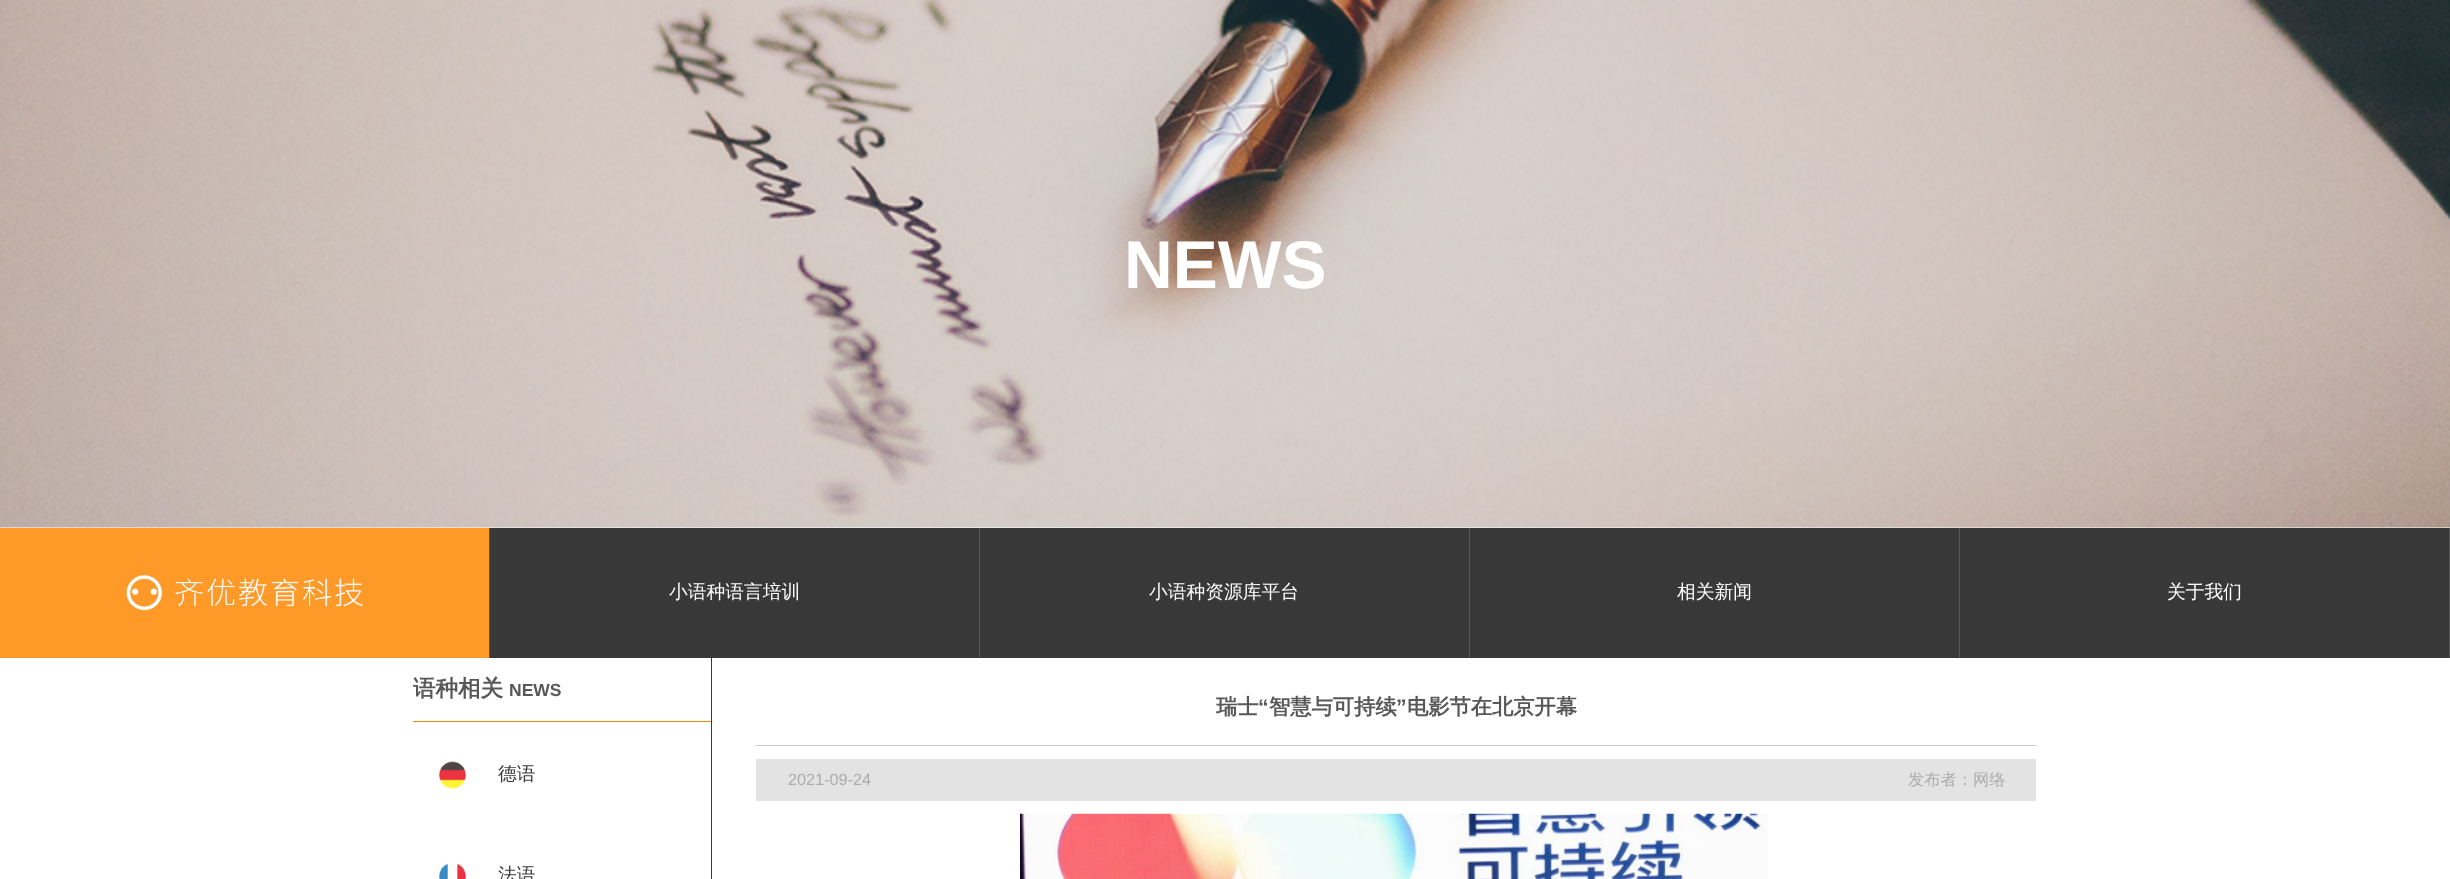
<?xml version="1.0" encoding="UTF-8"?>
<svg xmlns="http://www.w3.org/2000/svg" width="2450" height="879">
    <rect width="100%" height="100%" fill="#FFFFFF"/>
    <image x="0" y="0" width="2450" height="528" href="img_01.png"/>
    <text x="1124" y="288" font-family="Liberation Sans" font-size="67.5" font-weight="700" fill="#FFFFFF">NEWS</text>
    <rect x="0" y="528" width="489" height="130" fill="#FF9A28"/>
    <rect x="489" y="528" width="1" height="130" fill="#585858"/>
    <image x="126" y="575" width="237" height="36" href="img_02.png"/>
    <rect x="490" y="528" width="489" height="130" fill="#383838"/>
    <rect x="979" y="528" width="1" height="130" fill="#585858"/>
    <text x="669" y="598" font-family="WenQuanYi Zen Hei" font-size="18.75" font-weight="500" fill="#FFFFFF">小语种语言培训</text>
    <rect x="980" y="528" width="489" height="130" fill="#383838"/>
    <rect x="1469" y="528" width="1" height="130" fill="#585858"/>
    <text x="1149" y="598" font-family="WenQuanYi Zen Hei" font-size="18.75" font-weight="500" fill="#FFFFFF">小语种资源库平台</text>
    <rect x="1470" y="528" width="489" height="130" fill="#383838"/>
    <rect x="1959" y="528" width="1" height="130" fill="#585858"/>
    <text x="1677" y="598" font-family="WenQuanYi Zen Hei" font-size="18.75" font-weight="500" fill="#FFFFFF">相关新闻</text>
    <rect x="1960" y="528" width="489" height="130" fill="#383838"/>
    <rect x="2449" y="528" width="1" height="130" fill="#585858"/>
    <text x="2167" y="598" font-family="WenQuanYi Zen Hei" font-size="18.75" font-weight="500" fill="#FFFFFF">关于我们</text>
    <rect x="711" y="658" width="1" height="221" fill="#383838"/>
    <rect x="413" y="721" width="298" height="1" fill="#FD8800"/>
    <text x="413" y="696" font-family="WenQuanYi Zen Hei" font-size="22.5" font-weight="700" fill="#585858">语种相关</text>
    <text x="509" y="696" font-family="Liberation Sans" font-size="17.5" font-weight="700" fill="#585858">NEWS</text>
    <image x="439" y="761" width="27" height="28" href="img_03.png"/>
    <text x="498" y="780" font-family="WenQuanYi Zen Hei" font-size="18.75" font-weight="500" fill="#383838">德语</text>
    <image x="439" y="863" width="27" height="16" href="img_04.png"/>
    <text x="498" y="881" font-family="WenQuanYi Zen Hei" font-size="18.75" font-weight="500" fill="#383838">法语</text>
    <rect x="756" y="745" width="1280" height="1" fill="#CBCBCB"/>
    <text x="1216" y="714" font-family="WenQuanYi Zen Hei" font-size="21.25" font-weight="700" fill="#585858">瑞士</text>
    <text x="1258" y="714" font-family="Liberation Sans" font-size="21.25" font-weight="700" fill="#585858">“</text>
    <text x="1269" y="714" font-family="WenQuanYi Zen Hei" font-size="21.25" font-weight="700" fill="#585858">智慧与可持续</text>
    <text x="1396" y="714" font-family="Liberation Sans" font-size="21.25" font-weight="700" fill="#585858">”</text>
    <text x="1407" y="714" font-family="WenQuanYi Zen Hei" font-size="21.25" font-weight="700" fill="#585858">电影节在北京开幕</text>
    <rect x="756" y="759" width="1280" height="42" fill="#E3E3E3"/>
    <text x="788" y="785" font-family="Liberation Sans" font-size="16.25" fill="#ACACAC">2021-09-24</text>
    <text x="1908" y="785" font-family="WenQuanYi Zen Hei" font-size="16.25" font-weight="500" fill="#ACACAC">发布者：网络</text>
    <image x="1020" y="813" width="748" height="66" href="img_05.png"/>
</svg>
